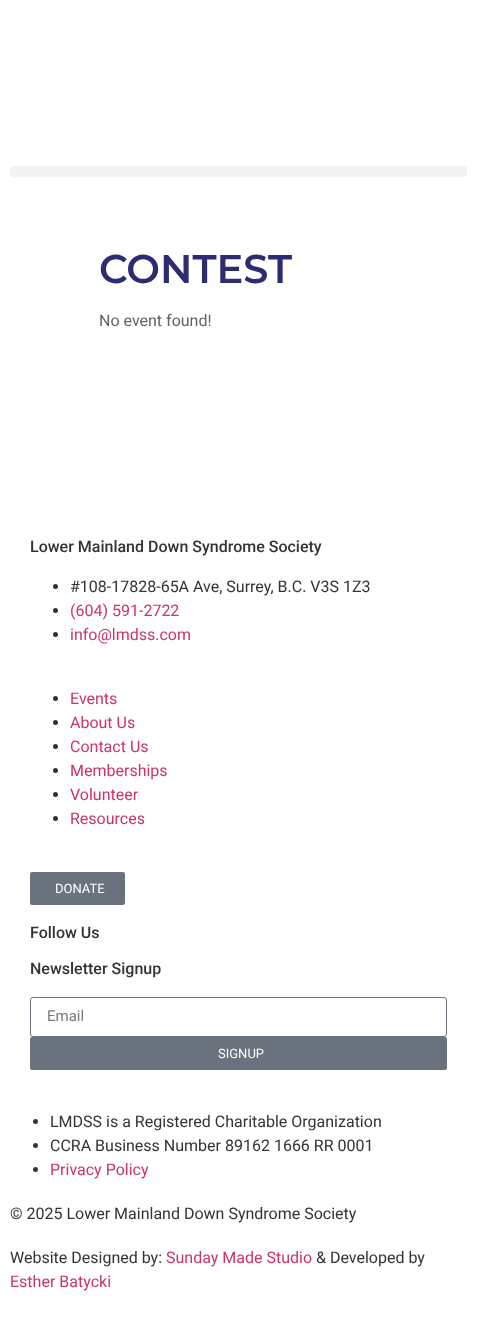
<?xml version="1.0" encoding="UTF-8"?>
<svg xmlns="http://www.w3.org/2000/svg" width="477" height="1342">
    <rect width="100%" height="100%" fill="#FFFFFF"/>
    <rect x="10" y="166" width="457" height="11" rx="3" fill="#F2F2F2"/>
    <text x="99" y="283" font-family="Montserrat" font-size="40" font-weight="600" fill="#2D2C72">CONTEST</text>
    <text x="99" y="326" font-family="Roboto" font-size="16" fill="#626262">No event found!</text>
    <text x="30" y="552" font-family="Roboto" font-size="16" font-weight="500" fill="#333333">Lower Mainland Down Syndrome Society</text>
    <circle cx="55.5" cy="586.5" r="2.5" fill="#333333"/>
    <text x="70" y="592" font-family="Roboto" font-size="16" fill="#333333">#108-17828-65A Ave, Surrey, B.C. V3S 1Z3</text>
    <circle cx="55.5" cy="610.5" r="2.5" fill="#333333"/>
    <text x="70" y="616" font-family="Roboto" font-size="16" fill="#CC3366">(604) 591-2722</text>
    <circle cx="55.5" cy="634.5" r="2.5" fill="#333333"/>
    <text x="70" y="640" font-family="Roboto" font-size="16" fill="#CC3366">info@lmdss.com</text>
    <circle cx="55.5" cy="698.5" r="2.5" fill="#333333"/>
    <text x="70" y="704" font-family="Roboto" font-size="16" fill="#CC3366">Events</text>
    <circle cx="55.5" cy="722.5" r="2.5" fill="#333333"/>
    <text x="70" y="728" font-family="Roboto" font-size="16" fill="#CC3366">About Us</text>
    <circle cx="55.5" cy="746.5" r="2.5" fill="#333333"/>
    <text x="70" y="752" font-family="Roboto" font-size="16" fill="#CC3366">Contact Us</text>
    <circle cx="55.5" cy="770.5" r="2.5" fill="#333333"/>
    <text x="70" y="776" font-family="Roboto" font-size="16" fill="#CC3366">Memberships</text>
    <circle cx="55.5" cy="794.5" r="2.5" fill="#333333"/>
    <text x="70" y="800" font-family="Roboto" font-size="16" fill="#CC3366">Volunteer</text>
    <circle cx="55.5" cy="818.5" r="2.5" fill="#333333"/>
    <text x="70" y="824" font-family="Roboto" font-size="16" fill="#CC3366">Resources</text>
    <rect x="30" y="872" width="95" height="33" rx="2" fill="#69727D"/>
    <text x="55" y="893" font-family="Roboto" font-size="13" fill="#FFFFFF">DONATE</text>
    <text x="30" y="938" font-family="Roboto" font-size="16" font-weight="500" fill="#333333">Follow Us</text>
    <text x="30" y="974" font-family="Roboto" font-size="16" font-weight="500" fill="#333333">Newsletter Signup</text>
    <rect x="30.5" y="997.5" width="416" height="39" rx="2.5" fill="none" stroke="#69727D"/>
    <text x="47" y="1021" font-family="Roboto" font-size="15" fill="#797A7C">Email</text>
    <rect x="30" y="1037" width="417" height="33" rx="2" fill="#69727D"/>
    <text x="218" y="1058" font-family="Roboto" font-size="13" fill="#FFFFFF">SIGNUP</text>
    <circle cx="35.5" cy="1121.5" r="2.5" fill="#333333"/>
    <text x="50" y="1127" font-family="Roboto" font-size="16" fill="#333333">LMDSS is a Registered Charitable Organization</text>
    <circle cx="35.5" cy="1145.5" r="2.5" fill="#333333"/>
    <text x="50" y="1151" font-family="Roboto" font-size="16" fill="#333333">CCRA Business Number 89162 1666 RR 0001</text>
    <circle cx="35.5" cy="1169.5" r="2.5" fill="#333333"/>
    <text x="50" y="1175" font-family="Roboto" font-size="16" fill="#CC3366">Privacy Policy</text>
    <text x="10" y="1219" font-family="Roboto" font-size="16" fill="#333333">© 2025 Lower Mainland Down Syndrome Society</text>
    <text x="10" y="1263" font-family="Roboto" font-size="16" fill="#333333">Website Designed by:</text>
    <text x="166" y="1263" font-family="Roboto" font-size="16" fill="#CC3366">Sunday Made Studio</text>
    <text x="316" y="1263" font-family="Roboto" font-size="16" fill="#333333">&amp; Developed by</text>
    <text x="10" y="1287" font-family="Roboto" font-size="16" fill="#CC3366">Esther Batycki</text>
</svg>
